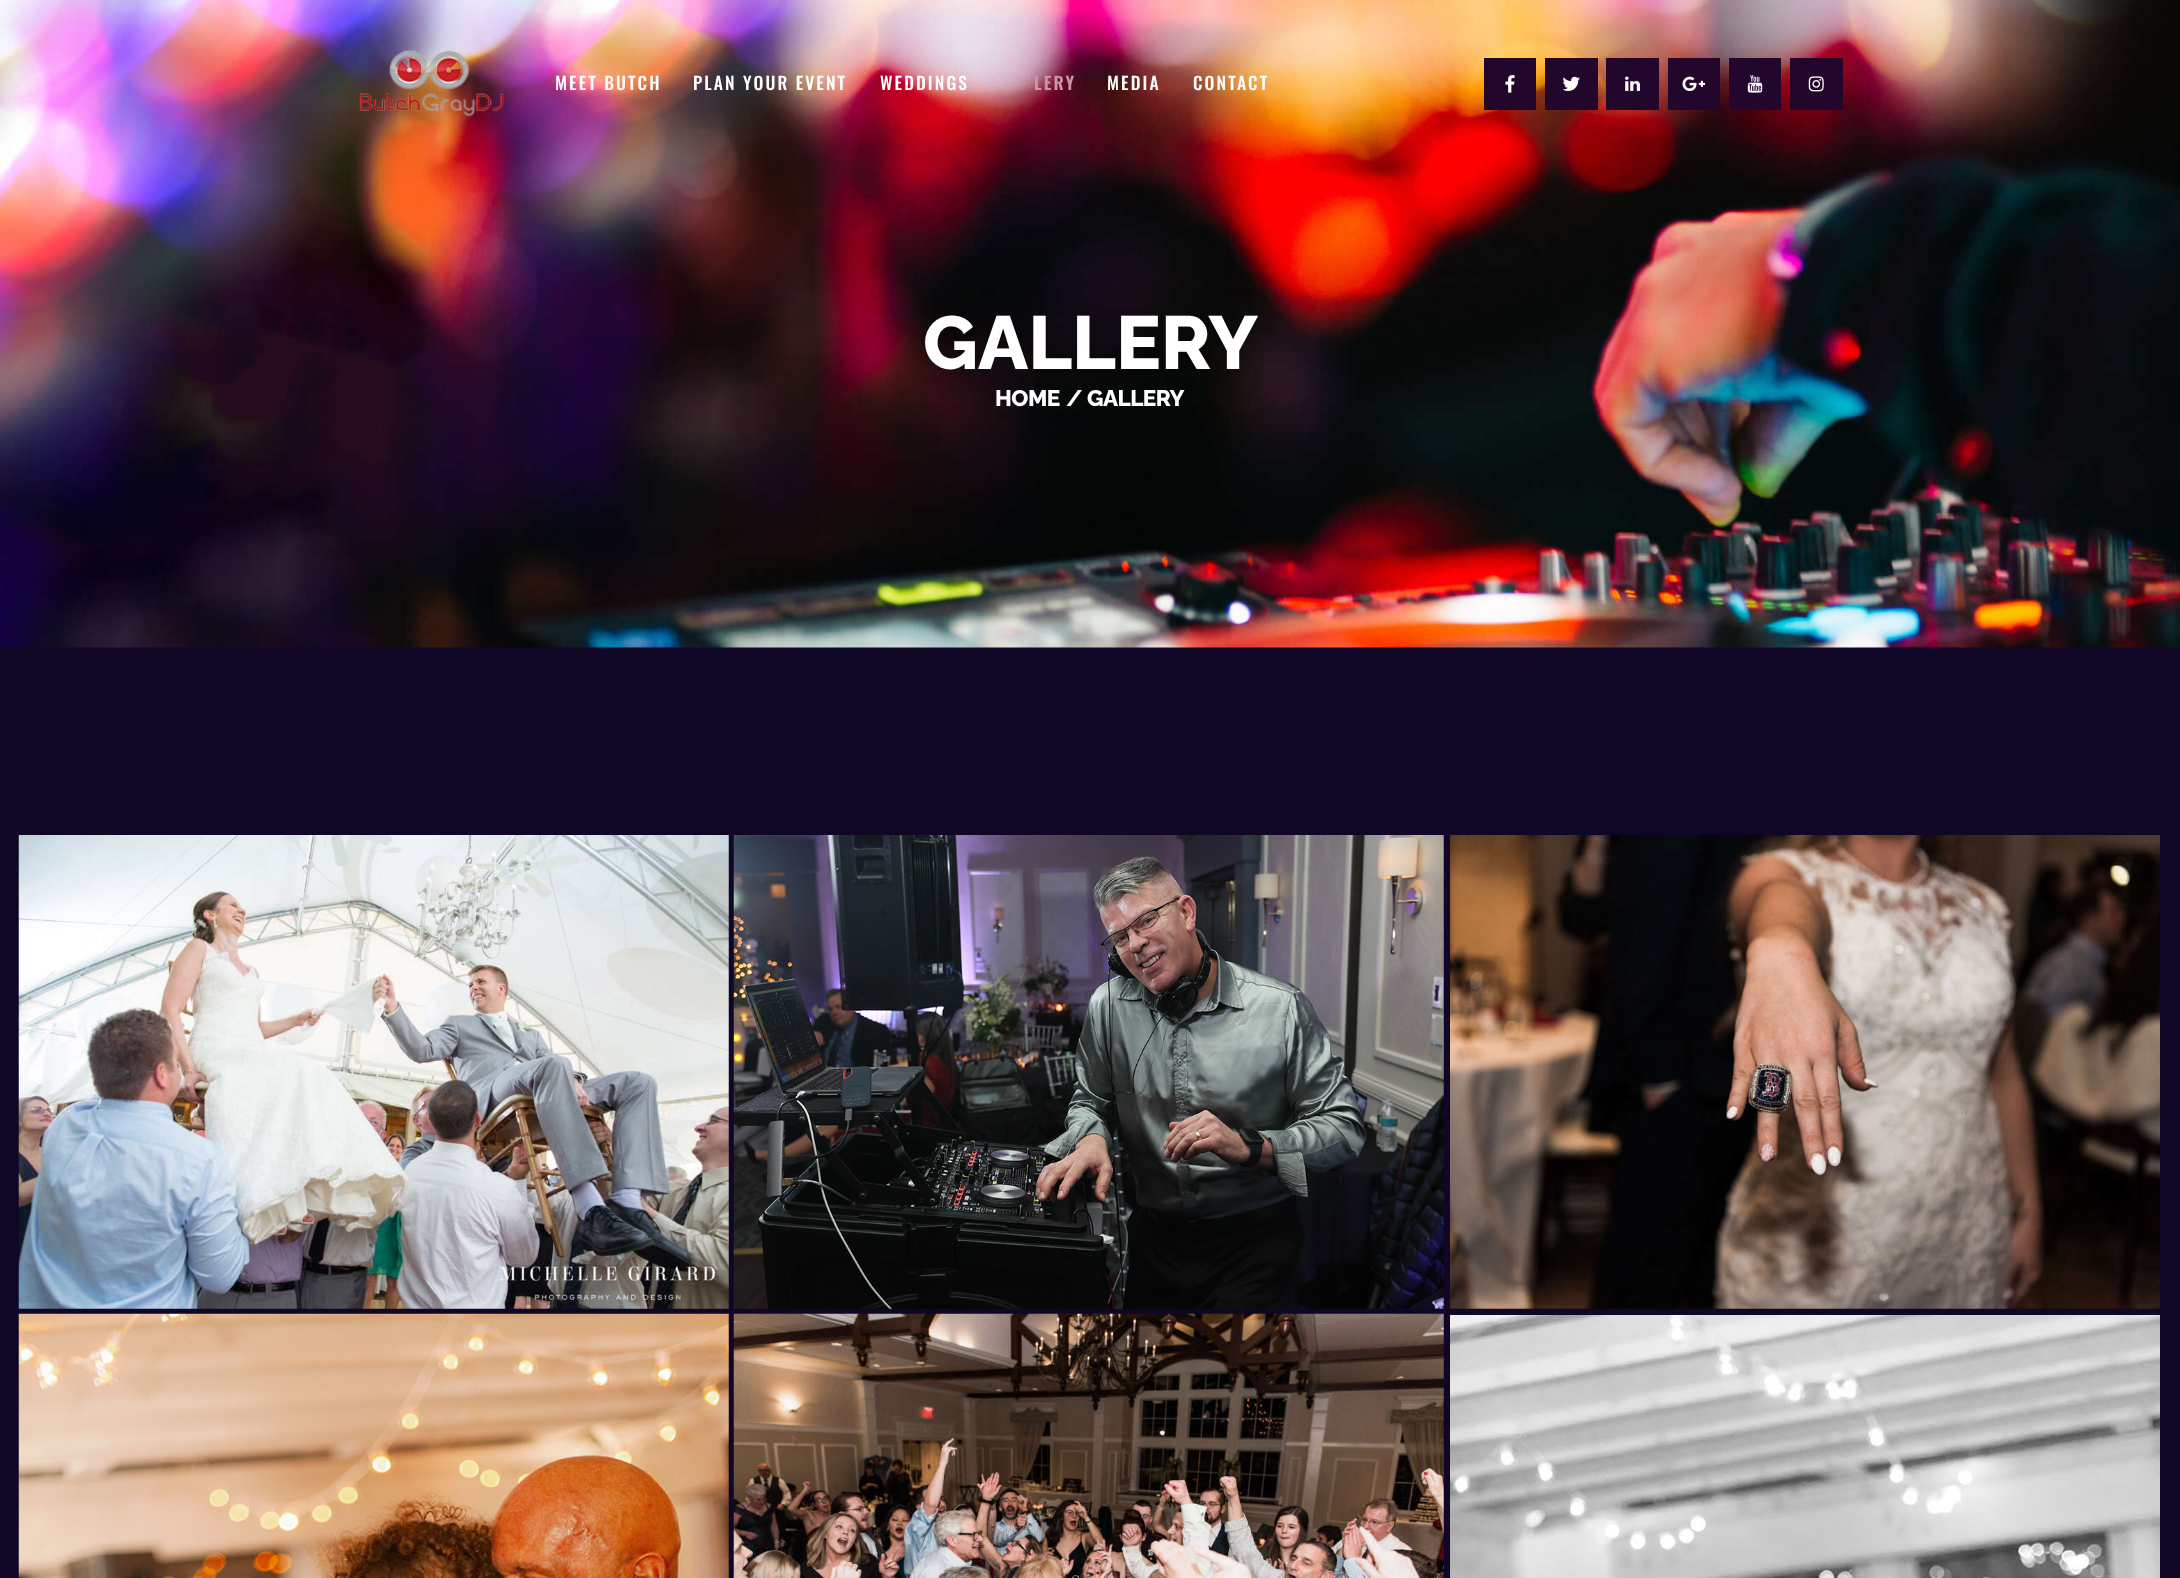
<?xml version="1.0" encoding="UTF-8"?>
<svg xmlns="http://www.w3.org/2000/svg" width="2180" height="1578">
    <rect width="100%" height="100%" fill="#100726"/>
    <image x="0" y="0" width="2180" height="648" href="img_01.png"/>
    <image x="359" y="50" width="145" height="67" href="img_02.png"/>
    <text x="555" y="90" font-family="Oswald" font-size="17.5" font-weight="500" letter-spacing="2.1" fill="#FFFFFF">MEET BUTCH</text>
    <text x="693" y="90" font-family="Oswald" font-size="17.5" font-weight="500" letter-spacing="2.1" fill="#FFFFFF">PLAN YOUR EVENT</text>
    <text x="880" y="90" font-family="Oswald" font-size="17.5" font-weight="500" letter-spacing="2.1" fill="#FFFFFF">WEDDINGS</text>
    <text x="1034" y="90" font-family="Oswald" font-size="17.5" font-weight="600" letter-spacing="2.1" fill="#C995AA">LERY</text>
    <text x="1107" y="90" font-family="Oswald" font-size="17.5" font-weight="500" letter-spacing="2.1" fill="#FFFFFF">MEDIA</text>
    <text x="1193" y="90" font-family="Oswald" font-size="17.5" font-weight="500" letter-spacing="2.1" fill="#FFFFFF">CONTACT</text>
    <rect x="1484" y="58" width="52" height="52" fill="#22062C"/>
    <image x="1505" y="75" width="10" height="18" href="img_03.png"/>
    <rect x="1545" y="58" width="53" height="52" fill="#22062C"/>
    <image x="1562" y="76" width="18" height="15" href="img_04.png"/>
    <rect x="1606" y="58" width="53" height="52" fill="#22062C"/>
    <image x="1625" y="76" width="15" height="15" href="img_05.png"/>
    <rect x="1668" y="58" width="52" height="52" fill="#22062C"/>
    <image x="1682" y="76" width="23" height="15" href="img_06.png"/>
    <rect x="1729" y="58" width="52" height="52" fill="#22062C"/>
    <image x="1747" y="75" width="16" height="18" href="img_07.png"/>
    <rect x="1790" y="58" width="53" height="52" fill="#22062C"/>
    <image x="1808" y="76" width="16" height="16" href="img_08.png"/>
    <text x="923" y="369" font-family="Raleway" font-size="75" font-weight="800" fill="#FFFFFF">GALLERY</text>
    <text x="995" y="406" font-family="Raleway" font-size="22.5" font-weight="800" letter-spacing="-0.5" fill="#FFFFFF">HOME</text>
    <text x="1066" y="406" font-family="Raleway" font-size="22.5" font-weight="800" letter-spacing="-0.5" fill="#FFFFFF">/</text>
    <text x="1087" y="406" font-family="Raleway" font-size="22.5" font-weight="800" letter-spacing="-0.5" fill="#FFFFFF">GALLERY</text>
    <image x="18" y="835" width="711" height="474" href="img_09.png"/>
    <image x="733" y="835" width="711" height="474" href="img_10.png"/>
    <image x="1450" y="835" width="710" height="474" href="img_11.png"/>
    <image x="18" y="1313" width="711" height="265" href="img_12.png"/>
    <image x="733" y="1313" width="711" height="265" href="img_13.png"/>
    <image x="1450" y="1315" width="710" height="263" href="img_14.png"/>
</svg>
